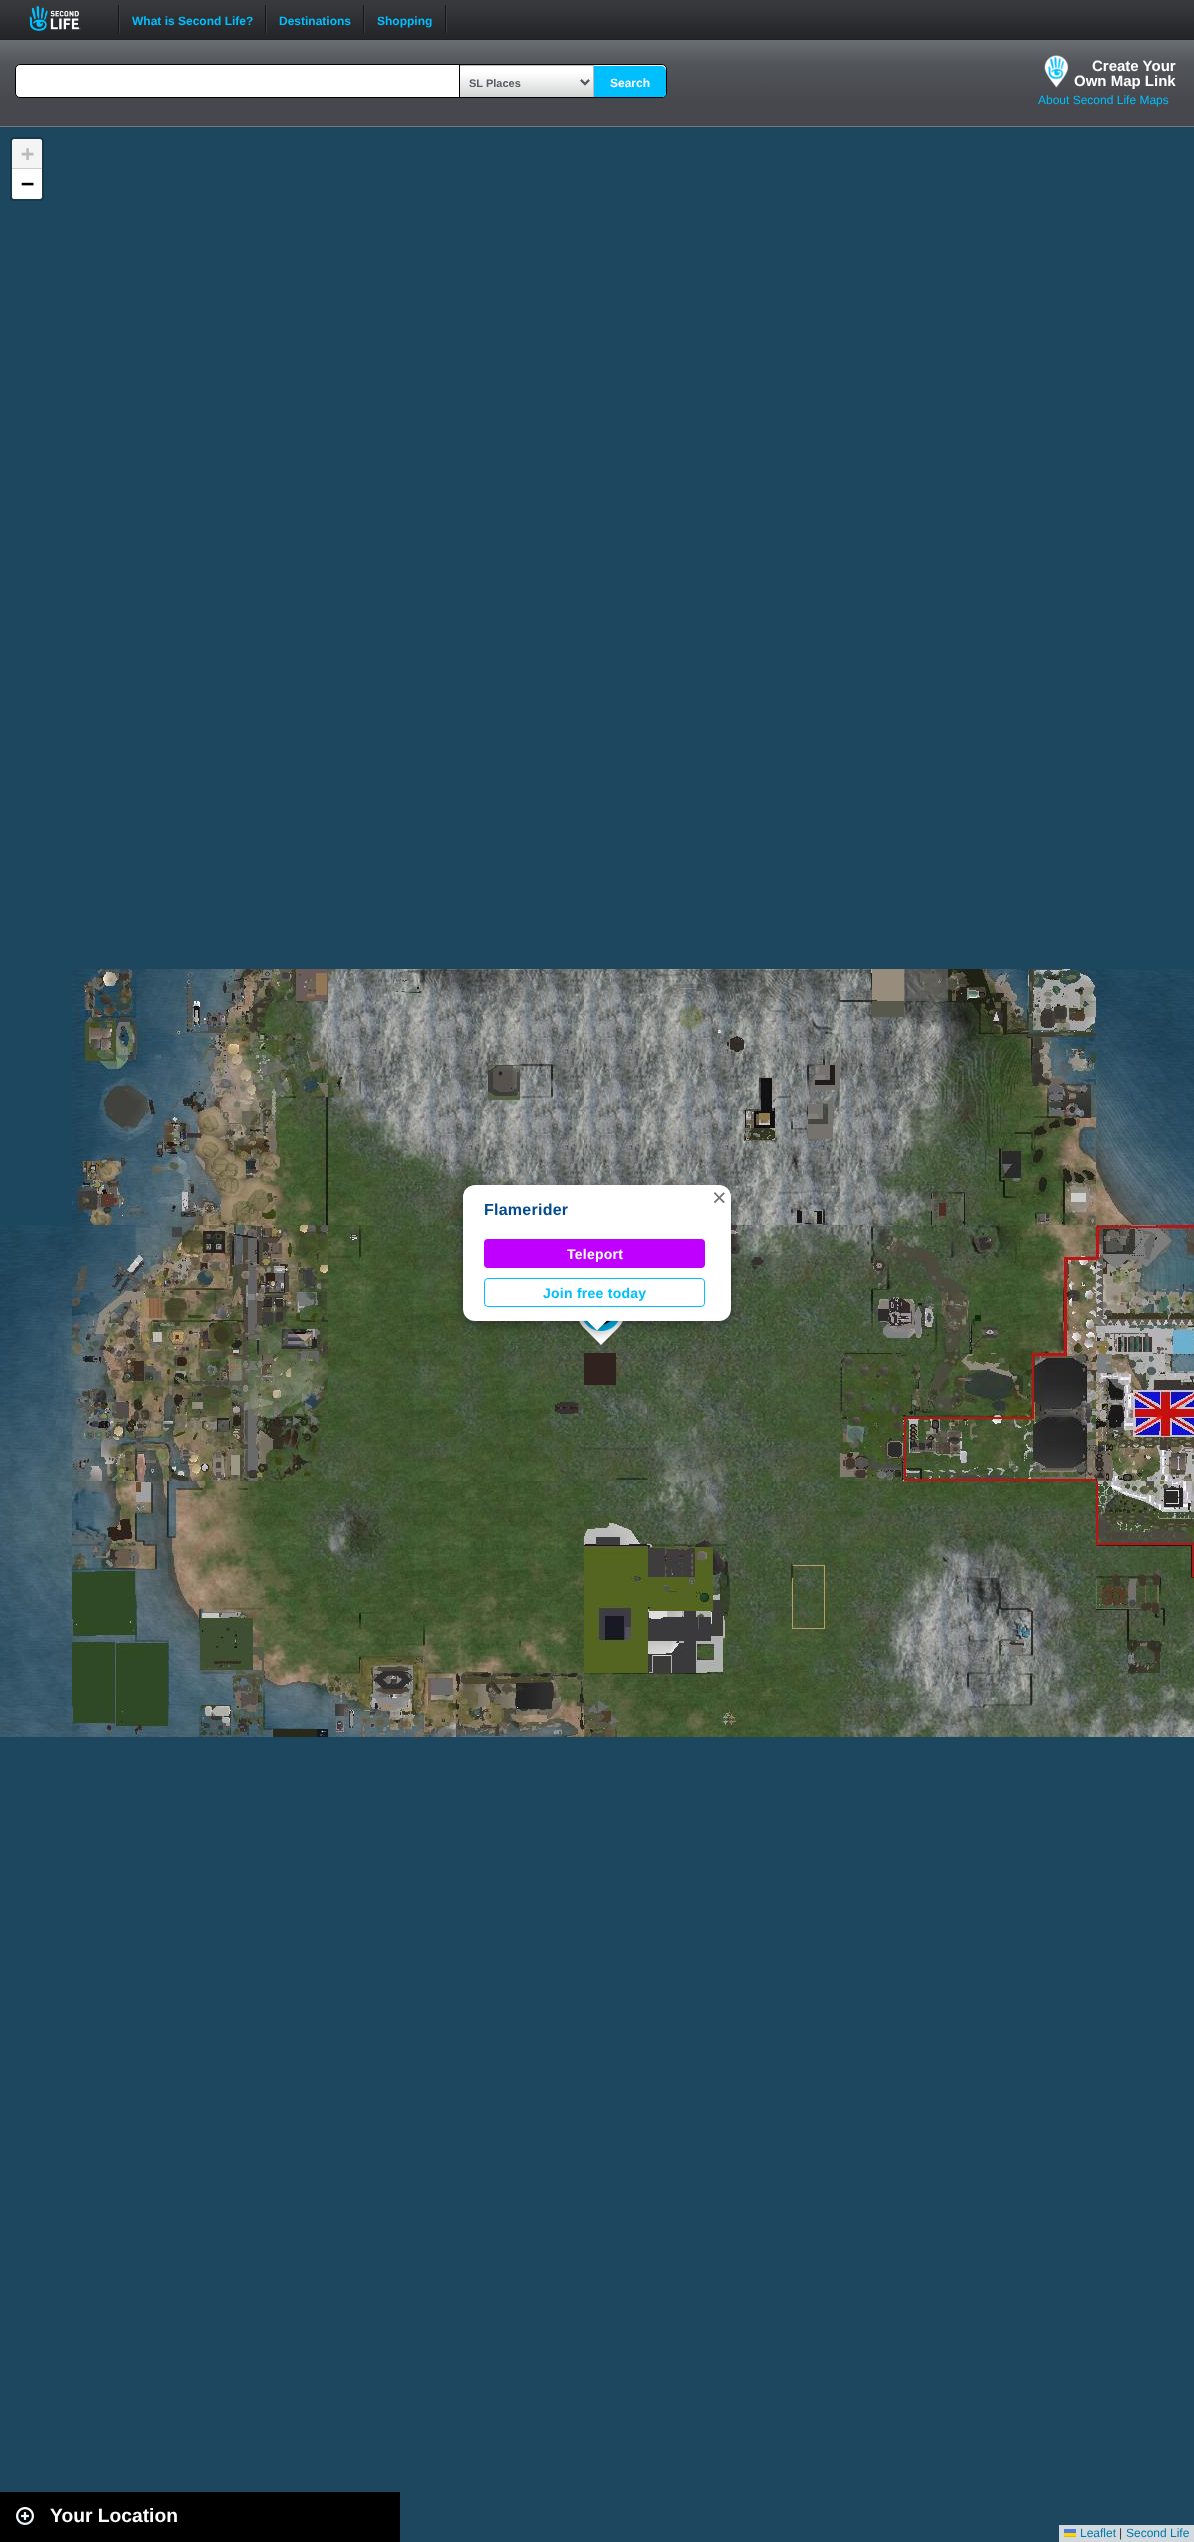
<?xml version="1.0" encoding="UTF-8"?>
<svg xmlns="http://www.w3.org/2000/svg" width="1194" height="2542">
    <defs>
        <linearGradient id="g1" gradientUnits="userSpaceOnUse" x1="0" y1="126" x2="0" y2="40"><stop offset="0.29" stop-color="#47484D"/><stop offset="0.71" stop-color="#515559"/><stop offset="1" stop-color="#6B6E73"/></linearGradient>
        <clipPath id="clip1"><rect x="16" y="65" width="650" height="32" rx="4"/></clipPath>
        <filter id="blur1" x="-50%" y="-200%" width="200%" height="500%"><feGaussianBlur stdDeviation="7"/></filter>
        <clipPath id="clip2"><rect x="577" y="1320" width="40" height="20"/></clipPath>
        <clipPath id="clip3"><rect x="577" y="1320" width="40" height="20"/></clipPath>
    </defs>
    <rect width="100%" height="100%" fill="#1D475F"/>
    <image x="0" y="0" width="1194" height="40" href="img_01.png"/>
    <image x="29" y="6" width="52" height="25" href="img_02.png"/>
    <rect x="119" y="5" width="1" height="28" fill="#3A3E42"/>
    <rect x="118" y="5" width="1" height="28" fill="#161616"/>
    <text x="132" y="25" font-family="Liberation Sans" font-size="12" font-weight="700" fill="#00BFFF">What is Second Life?</text>
    <rect x="266" y="5" width="1" height="28" fill="#3A3E42"/>
    <rect x="265" y="5" width="1" height="28" fill="#161616"/>
    <text x="279" y="25" font-family="Liberation Sans" font-size="12" font-weight="700" fill="#00BFFF">Destinations</text>
    <rect x="364" y="5" width="1" height="28" fill="#3A3E42"/>
    <rect x="363" y="5" width="1" height="28" fill="#161616"/>
    <text x="377" y="25" font-family="Liberation Sans" font-size="12" font-weight="700" fill="#00BFFF">Shopping</text>
    <rect x="446" y="5" width="1" height="28" fill="#3A3E42"/>
    <rect x="445" y="5" width="1" height="28" fill="#161616"/>
    <rect x="0" y="40" width="1194" height="86" fill="url(#g1)"/>
    <rect x="0" y="126" width="1194" height="1" fill="#72777E"/>
    <rect x="15.5" y="64.5" width="651" height="33" rx="4.5" fill="#FFFFFF" stroke="#000000"/>
    <image x="460" y="66" width="133" height="31" href="img_03.png"/>
    <rect x="459" y="65" width="135" height="1" fill="#BBBBBB"/>
    <rect x="593" y="65" width="1" height="32" fill="#BBBBBB"/>
    <rect x="459" y="65" width="1" height="32" fill="#000000"/>
    <path d="M 581 80 L 585 84 L 589 80" fill="none" stroke="#595C62" stroke-width="2"/>
    <text x="469" y="87" font-family="Liberation Sans" font-size="11" font-weight="700" fill="#595C62">SL Places</text>
    <g clip-path="url(#clip1)">
        <path d="M 594 66 H 661 C 664 66 666 68 666 71 V 95 C 666 98 664 100 661 100 H 594 Z" fill="#00BFFF"/>
    </g>
    <text x="610" y="87" font-family="Liberation Sans" font-size="12" font-weight="700" fill="#FFFFFF">Search</text>
    <image x="1044" y="55" width="25" height="33" href="img_04.png"/>
    <text x="1092" y="71" font-family="Liberation Sans" font-size="15" font-weight="700" fill="#FFFFFF">Create Your</text>
    <text x="1074" y="86" font-family="Liberation Sans" font-size="15" font-weight="700" fill="#FFFFFF">Own Map Link</text>
    <text x="1038" y="104" font-family="Liberation Sans" font-size="12" fill="#00BFFF">About Second Life Maps</text>
    <rect x="11" y="138" width="32" height="62" rx="3" fill="none" stroke="#17394C" stroke-width="2"/>
    <path d="M 14 139 H 40 C 41 139 42 140 42 141 V 169 H 12 V 141 C 12 140 13 139 14 139 Z" fill="#F4F4F4"/>
    <rect x="12" y="168" width="30" height="1" fill="#CCCCCC"/>
    <text x="21" y="161" font-family="DejaVu Sans Mono" font-size="22" font-weight="700" fill="#BBBBBB">+</text>
    <path d="M 12 169 H 42 V 197 C 42 198 41 199 40 199 H 14 C 13 199 12 198 12 197 Z" fill="#FFFFFF"/>
    <text x="21" y="191" font-family="DejaVu Sans Mono" font-size="22" font-weight="700" fill="#000000">−</text>
    <rect x="1059" y="2525" width="135" height="17" fill="#D2DADF"/>
    <text x="1080" y="2537" font-family="Liberation Sans" font-size="12" fill="#0078A8">Leaflet</text>
    <rect x="1064" y="2529" width="12" height="4" fill="#4C7BE1"/>
    <rect x="1064" y="2533" width="12" height="3" fill="#FFD500"/>
    <rect x="1064" y="2536" width="12" height="1" fill="#E0BC00"/>
    <text x="1119" y="2537" font-family="Liberation Sans" font-size="12" fill="#333333">|</text>
    <text x="1126" y="2537" font-family="Liberation Sans" font-size="12" fill="#0078A8">Second Life</text>
    <image x="72" y="969" width="256" height="256" href="img_05.png"/>
    <image x="328" y="969" width="256" height="256" href="img_06.png"/>
    <image x="584" y="969" width="256" height="256" href="img_07.png"/>
    <image x="840" y="969" width="256" height="256" href="img_08.png"/>
    <image x="1096" y="969" width="98" height="256" href="img_09.png"/>
    <image x="0" y="1225" width="72" height="256" href="img_10.png"/>
    <image x="72" y="1225" width="256" height="256" href="img_11.png"/>
    <image x="328" y="1225" width="256" height="256" href="img_12.png"/>
    <image x="584" y="1225" width="256" height="256" href="img_13.png"/>
    <image x="840" y="1225" width="256" height="256" href="img_14.png"/>
    <image x="1096" y="1225" width="98" height="256" href="img_15.png"/>
    <image x="0" y="1481" width="72" height="256" href="img_16.png"/>
    <image x="72" y="1481" width="256" height="256" href="img_17.png"/>
    <image x="328" y="1481" width="256" height="256" href="img_18.png"/>
    <image x="584" y="1481" width="256" height="256" href="img_19.png"/>
    <image x="840" y="1481" width="256" height="256" href="img_20.png"/>
    <image x="1096" y="1481" width="98" height="256" href="img_21.png"/>
    <image x="579" y="1321" width="44" height="24" href="img_22.png"/>
    <rect x="463" y="1188" width="268" height="136" rx="12" fill="#000000" fill-opacity="0.4" filter="url(#blur1)"/>
    <rect x="463" y="1185" width="268" height="136" rx="12" fill="#FFFFFF"/>
    <text x="712" y="1206" font-family="Liberation Sans" font-size="25" fill="#757575">×</text>
    <text x="484" y="1215" font-family="Liberation Sans" font-size="16" font-weight="700" letter-spacing="0.25" fill="#014A8E">Flamerider</text>
    <rect x="484" y="1239" width="221" height="29" rx="4" fill="#BF00FF"/>
    <text x="567" y="1259" font-family="Liberation Sans" font-size="14" font-weight="700" letter-spacing="0.25" fill="#FFFFFF">Teleport</text>
    <rect x="484.5" y="1278.5" width="220" height="28" rx="3.5" fill="none" stroke="#00BFFF"/>
    <text x="543" y="1298" font-family="Liberation Sans" font-size="14" font-weight="700" letter-spacing="0.25" fill="#00BFFF">Join free today</text>
    <g clip-path="url(#clip2)">
        <rect x="589" y="1313" width="17" height="17" fill="#000000" fill-opacity="0.4" filter="url(#blur1)"/>
    </g>
    <g clip-path="url(#clip3)">
        <path d="M 597 1306.5 L 609 1318.5 L 597 1330.5 L 585 1318.5 Z" fill="#FFFFFF"/>
    </g>
    <rect x="0" y="2492" width="400" height="50" fill="#000000"/>
    <image x="16" y="2507" width="18" height="18" href="img_23.png"/>
    <text x="50" y="2522" font-family="Liberation Sans" font-size="19.25" font-weight="700" fill="#FFFFFF">Your Location</text>
</svg>
